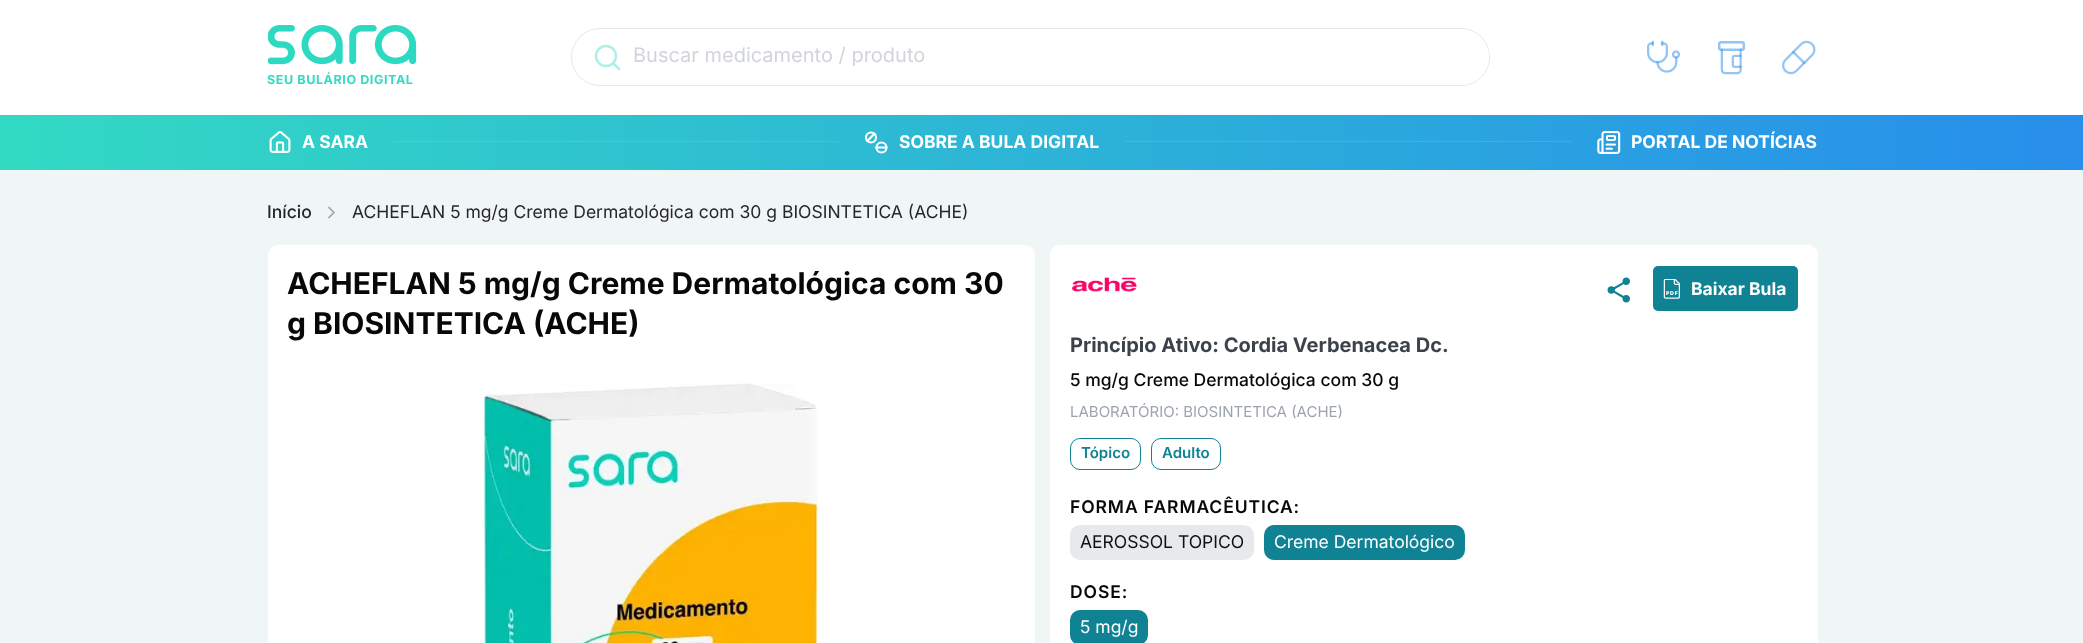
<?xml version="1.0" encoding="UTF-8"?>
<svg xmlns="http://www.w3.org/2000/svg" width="2083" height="643">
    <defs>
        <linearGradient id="g1" gradientUnits="userSpaceOnUse" x1="0" y1="143" x2="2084" y2="142"><stop offset="0" stop-color="#32DAC3"/><stop offset="1" stop-color="#278EEB"/></linearGradient>
        <linearGradient id="g2" gradientUnits="userSpaceOnUse" x1="0" y1="143" x2="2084" y2="142"><stop offset="0" stop-color="#47DEC9"/><stop offset="1" stop-color="#3D99ED"/></linearGradient>
    </defs>
    <rect width="100%" height="100%" fill="#FFFFFF"/>
    <rect x="571.5" y="28.5" width="918" height="57" rx="28.5" fill="none" stroke="#E5E7EB"/>
    <path d="M 619 69 L 613.5 63.5" fill="none" stroke="#ADF0E7" stroke-width="2.5" stroke-linecap="round" stroke-linejoin="round"/>
    <circle cx="606" cy="56" r="10" fill="none" stroke="#ADF0E7" stroke-width="2.5"/>
    <rect x="633" y="29" width="856" height="56" rx="28" fill="#FFFFFF"/>
    <text x="633" y="62" font-family="Inter" font-size="20" fill="#D1D5DB">Buscar medicamento / produto</text>
    <image x="1647" y="40" width="34" height="33" href="img_01.png"/>
    <image x="1718" y="41" width="27" height="34" href="img_02.png"/>
    <image x="1782" y="40" width="34" height="35" href="img_03.png"/>
    <image x="268" y="25" width="149" height="40" href="img_04.png"/>
    <text x="267" y="84" font-family="Inter" font-size="12.5" font-weight="700" letter-spacing="0.6" fill="#32DAC3">SEU BULÁRIO DIGITAL</text>
    <rect x="0" y="115" width="2083" height="55" fill="url(#g1)"/>
    <rect x="1125" y="141" width="446" height="1" fill="url(#g2)"/>
    <rect x="393" y="141" width="446" height="1" fill="url(#g2)"/>
    <image x="269" y="131" width="22" height="22" href="img_05.png"/>
    <text x="302" y="148" font-family="Inter" font-size="17.5" font-weight="700" fill="#FFFFFF">A SARA</text>
    <circle cx="871" cy="137.5" r="5" fill="none" stroke="#FFFFFF" stroke-width="2.1"/>
    <circle cx="881.5" cy="147.5" r="5" fill="none" stroke="#FFFFFF" stroke-width="2.1"/>
    <path d="M 876 147.5 H 886.5 M 867.5 141 L 874.5 133.5" fill="none" stroke="#FFFFFF" stroke-width="2.1" stroke-linecap="round" stroke-linejoin="round"/>
    <text x="899" y="148" font-family="Inter" font-size="17.5" font-weight="700" fill="#FFFFFF">SOBRE A BULA DIGITAL</text>
    <image x="1597" y="131" width="24" height="23" href="img_06.png"/>
    <text x="1631" y="148" font-family="Inter" font-size="17.5" font-weight="700" fill="#FFFFFF">PORTAL DE NOTÍCIAS</text>
    <rect x="0" y="170" width="2083" height="473" fill="#F0F5F6"/>
    <text x="267" y="218" font-family="Inter" font-size="17.5" font-weight="500" fill="#272727">Início</text>
    <path d="M 329 217.5 L 334 212.5 L 329 207.5" fill="none" stroke="#A1A1AA" stroke-width="1.7" stroke-linecap="round" stroke-linejoin="round"/>
    <text x="352" y="218" font-family="Inter" font-size="17.5" fill="#272727">ACHEFLAN 5 mg/g Creme Dermatológica com 30 g BIOSINTETICA (ACHE)</text>
    <rect x="268" y="245" width="767" height="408" rx="10" fill="#FFFFFF"/>
    <text font-family="Inter" font-size="30" font-weight="700" fill="#080808">
        <tspan x="287" y="294">ACHEFLAN 5 mg/g Creme Dermatológica com 30</tspan>
        <tspan x="287" y="334">g BIOSINTETICA (ACHE)</tspan>
    </text>
    <image x="483" y="383" width="335" height="260" href="img_07.png"/>
    <rect x="1050" y="245" width="768" height="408" rx="10" fill="#FFFFFF"/>
    <path d="M 1060 245 H 1808 C 1813.5 245 1818 249.5 1818 255 V 433 H 1050 V 255 C 1050 249.5 1054.5 245 1060 245 Z" fill="#FFFFFF"/>
    <image x="1072" y="277" width="65" height="15" href="img_08.png"/>
    <image x="1607" y="277" width="23" height="26" href="img_09.png"/>
    <rect x="1653" y="266" width="145" height="45" rx="5" fill="#0F8294"/>
    <image x="1663" y="279" width="17" height="20" href="img_10.png"/>
    <text x="1691" y="295" font-family="Inter" font-size="17.5" font-weight="700" fill="#FFFFFF">Baixar Bula</text>
    <text x="1070" y="352" font-family="Inter" font-size="20" font-weight="700" fill="#3B424A">Princípio Ativo: Cordia Verbenacea Dc.</text>
    <text x="1070" y="386" font-family="Inter" font-size="17.5" font-weight="500" fill="#080808">5 mg/g Creme Dermatológica com 30 g</text>
    <text x="1070" y="417" font-family="Inter" font-size="15" fill="#9CA3AF">LABORATÓRIO: BIOSINTETICA (ACHE)</text>
    <rect x="1070.5" y="438.5" width="70" height="31" rx="9.5" fill="none" stroke="#0F8294"/>
    <text x="1081" y="458" font-family="Inter" font-size="15" font-weight="600" fill="#0F8294">Tópico</text>
    <rect x="1151.5" y="438.5" width="69" height="31" rx="9.5" fill="none" stroke="#0F8294"/>
    <text x="1162" y="458" font-family="Inter" font-size="15" font-weight="600" fill="#0F8294">Adulto</text>
    <text x="1070" y="513" font-family="Inter" font-size="17.5" font-weight="600" letter-spacing="0.9" fill="#080808">FORMA FARMACÊUTICA:</text>
    <rect x="1070" y="525" width="184" height="35" rx="10" fill="#E7E9EC"/>
    <text x="1080" y="548" font-family="Inter" font-size="17.5" fill="#101113">AEROSSOL TOPICO</text>
    <rect x="1264" y="525" width="201" height="35" rx="10" fill="#0F8294"/>
    <text x="1274" y="548" font-family="Inter" font-size="17.5" fill="#FFFFFF">Creme Dermatológico</text>
    <text x="1070" y="598" font-family="Inter" font-size="17.5" font-weight="600" letter-spacing="0.9" fill="#080808">DOSE:</text>
    <rect x="1070" y="610" width="78" height="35" rx="10" fill="#0F8294"/>
    <text x="1080" y="633" font-family="Inter" font-size="17.5" fill="#FFFFFF">5 mg/g</text>
</svg>
